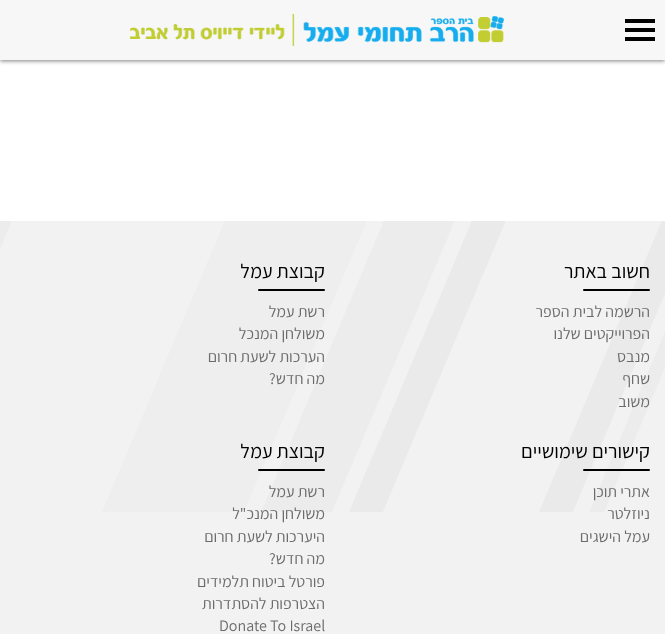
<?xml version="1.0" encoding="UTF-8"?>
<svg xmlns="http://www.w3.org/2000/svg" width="665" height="634">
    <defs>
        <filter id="blur1" x="-50%" y="-200%" width="200%" height="500%"><feGaussianBlur stdDeviation="2"/></filter>
    </defs>
    <rect width="100%" height="100%" fill="#FFFFFF"/>
    <rect x="0" y="1" width="665" height="60" fill="#000000" fill-opacity="0.5" filter="url(#blur1)"/>
    <rect x="0" y="0" width="665" height="60" fill="#F7F7F7"/>
    <rect x="625" y="19" width="30" height="4" fill="#000000"/>
    <rect x="625" y="28" width="30" height="4" fill="#000000"/>
    <rect x="625" y="37" width="30" height="4" fill="#000000"/>
    <image x="129" y="14" width="375" height="32" href="img_01.png"/>
    <rect x="0" y="221" width="665" height="413" fill="#F2F2F2"/>
    <image x="0" y="221" width="665" height="291" href="img_02.png"/>
    <text x="650" y="278" font-family="Assistant" font-size="20" font-weight="200" direction="rtl" fill="#000000">חשוב באתר</text>
    <rect x="583" y="289" width="67" height="2" rx="1" fill="#000000"/>
    <text font-family="Assistant" font-size="16" font-weight="200" direction="rtl" fill="#6B6B6B">
        <tspan x="650" y="317">הרשמה לבית הספר</tspan>
        <tspan x="650" y="339">הפרוייקטים שלנו</tspan>
        <tspan x="650" y="362">מנבס</tspan>
        <tspan x="650" y="384">שחף</tspan>
        <tspan x="650" y="407">משוב</tspan>
    </text>
    <text x="325" y="278" font-family="Assistant" font-size="20" font-weight="200" direction="rtl" fill="#000000">קבוצת עמל</text>
    <rect x="258" y="289" width="67" height="2" rx="1" fill="#000000"/>
    <text font-family="Assistant" font-size="16" font-weight="200" direction="rtl" fill="#6B6B6B">
        <tspan x="325" y="317">רשת עמל</tspan>
        <tspan x="325" y="339">משולחן המנכל</tspan>
        <tspan x="325" y="362">הערכות לשעת חרום</tspan>
        <tspan x="325" y="384">מה חדש?</tspan>
    </text>
    <text x="650" y="458" font-family="Assistant" font-size="20" font-weight="200" direction="rtl" fill="#000000">קישורים שימושיים</text>
    <rect x="583" y="469" width="67" height="2" rx="1" fill="#000000"/>
    <text font-family="Assistant" font-size="16" font-weight="200" direction="rtl" fill="#6B6B6B">
        <tspan x="650" y="497">אתרי תוכן</tspan>
        <tspan x="650" y="519">ניוזלטר</tspan>
        <tspan x="650" y="542">עמל הישגים</tspan>
    </text>
    <text x="325" y="458" font-family="Assistant" font-size="20" font-weight="200" direction="rtl" fill="#000000">קבוצת עמל</text>
    <rect x="258" y="469" width="67" height="2" rx="1" fill="#000000"/>
    <text font-family="Assistant" font-size="16" font-weight="200" direction="rtl" fill="#6B6B6B">
        <tspan x="325" y="497">רשת עמל</tspan>
        <tspan x="325" y="519">משולחן המנכ"ל</tspan>
        <tspan x="325" y="542">היערכות לשעת חרום</tspan>
        <tspan x="325" y="564">מה חדש?</tspan>
        <tspan x="325" y="587">פורטל ביטוח תלמידים</tspan>
        <tspan x="325" y="609">הצטרפות להסתדרות</tspan>
    </text>
    <text x="219" y="631" font-family="Assistant" font-size="16" font-weight="200" fill="#6B6B6B">Donate To Israel</text>
</svg>
